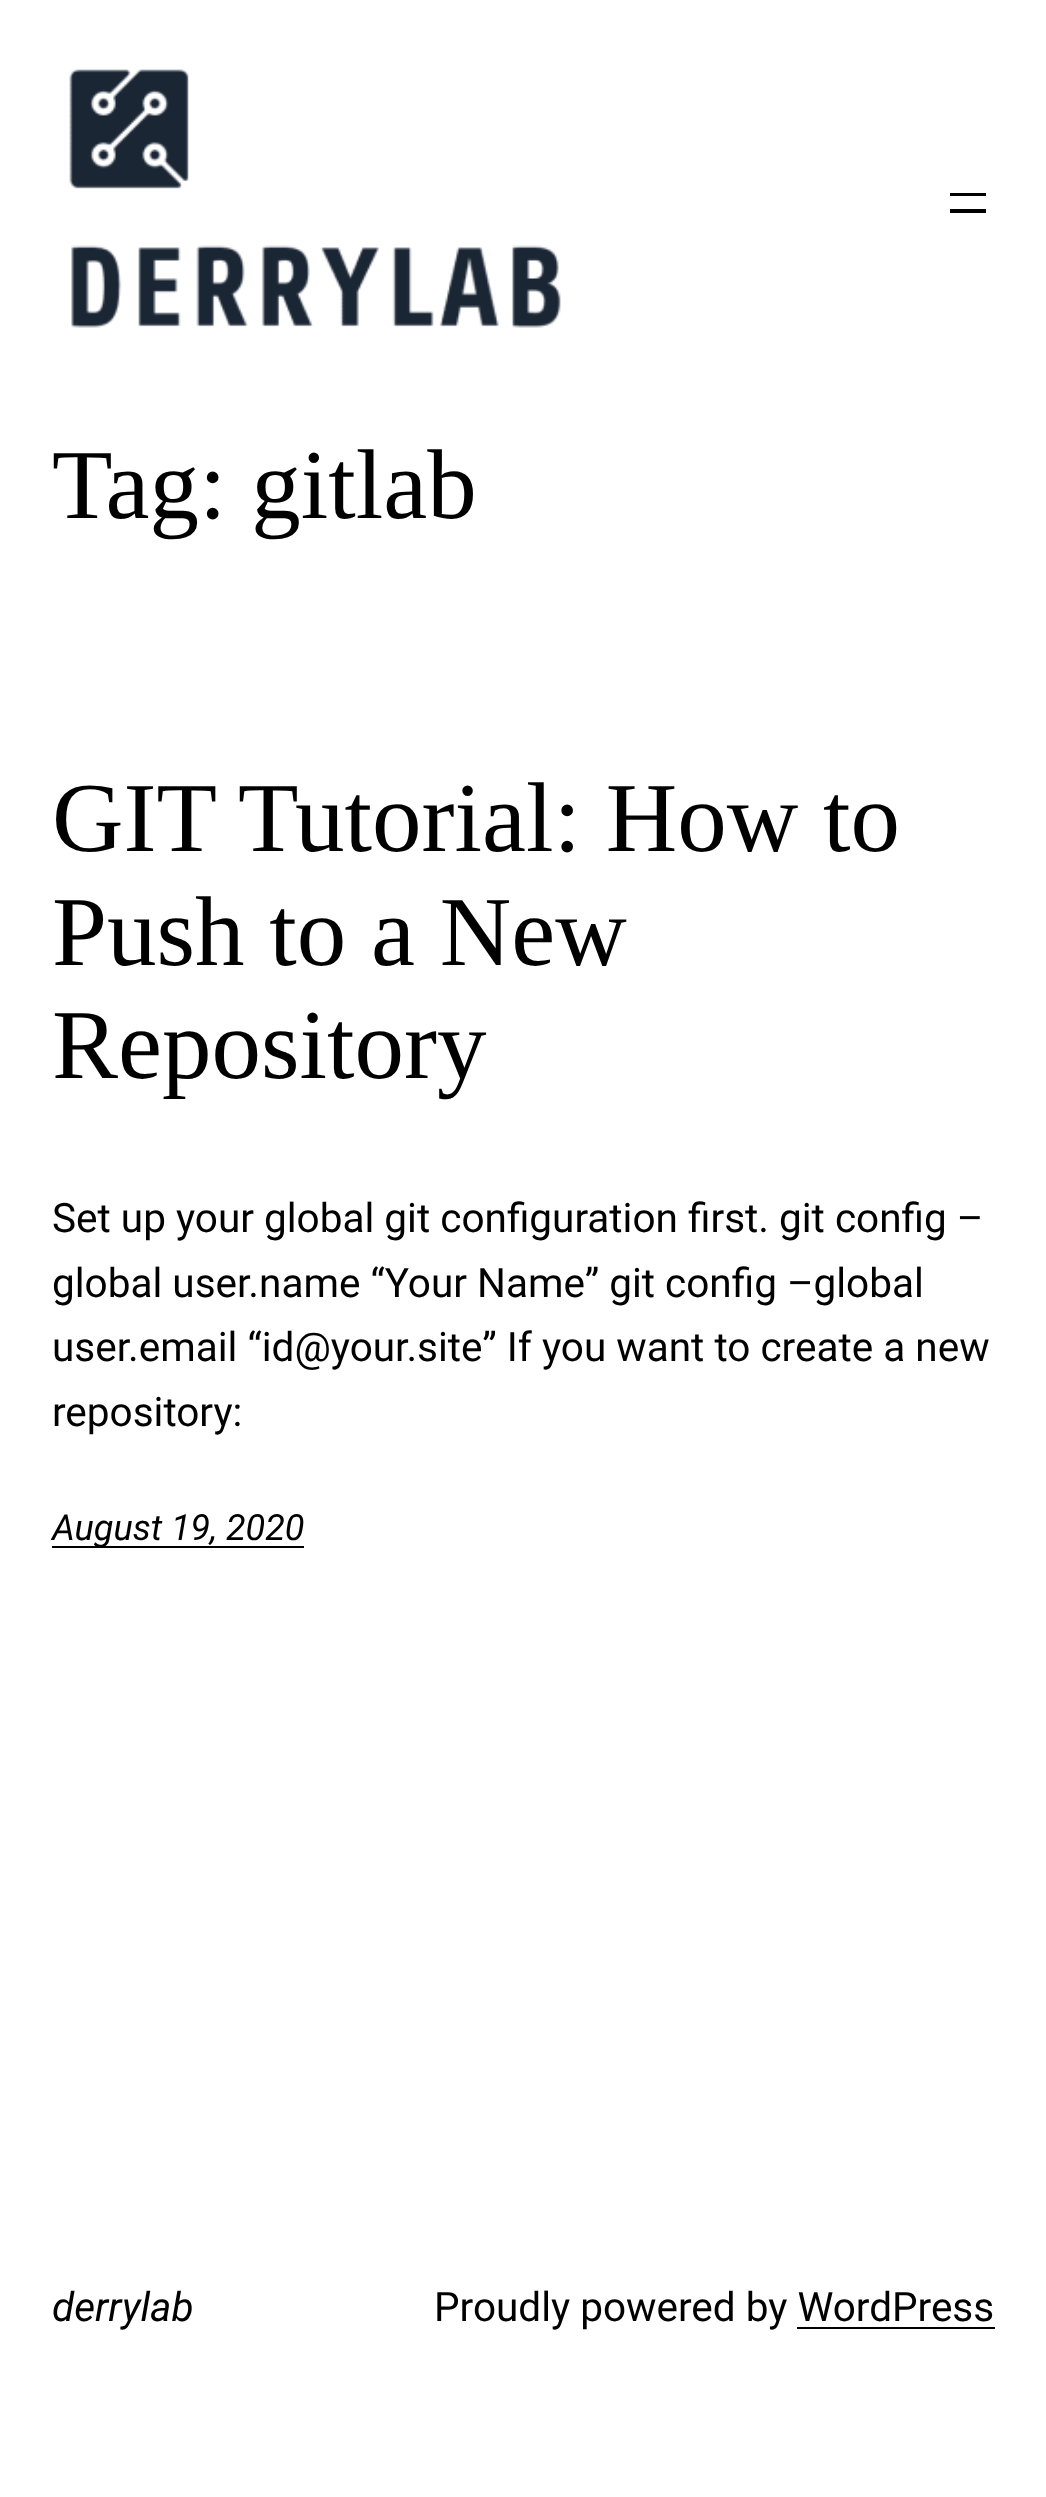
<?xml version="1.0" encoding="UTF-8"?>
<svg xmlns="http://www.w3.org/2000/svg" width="1046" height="2497">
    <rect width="100%" height="100%" fill="#FFFFFF"/>
    <image x="69" y="69" width="492" height="259" href="img_01.png"/>
    <rect x="950" y="193" width="36" height="3" fill="#000000"/>
    <rect x="950" y="209" width="36" height="4" fill="#000000"/>
    <text x="52" y="518" font-family="Liberation Serif" font-size="99" fill="#000000">Tag: gitlab</text>
    <text font-family="Liberation Serif" font-size="99" fill="#000000">
        <tspan x="52" y="851">GIT Tutorial: How to</tspan>
        <tspan x="52" y="965">Push to a New</tspan>
        <tspan x="52" y="1078">Repository</tspan>
    </text>
    <text font-family="Roboto" font-size="40.5" fill="#000000">
        <tspan x="52" y="1232">Set up your global git configuration first. git config –</tspan>
        <tspan x="52" y="1297">global user.name “Your Name” git config –global</tspan>
        <tspan x="52" y="1361">user.email “id@your.site” If you want to create a new</tspan>
        <tspan x="52" y="1426">repository:</tspan>
    </text>
    <rect x="52" y="1546" width="252" height="2" fill="#000000"/>
    <text x="52" y="1540" font-family="Roboto" font-size="36" font-style="italic" fill="#000000">August 19, 2020</text>
    <text x="52" y="2321" font-family="Roboto" font-size="40.5" font-style="italic" fill="#000000">derrylab</text>
    <text x="434" y="2321" font-family="Roboto" font-size="40.5" fill="#000000">Proudly powered by WordPress</text>
    <rect x="797" y="2327" width="198" height="2" fill="#000000"/>
</svg>
